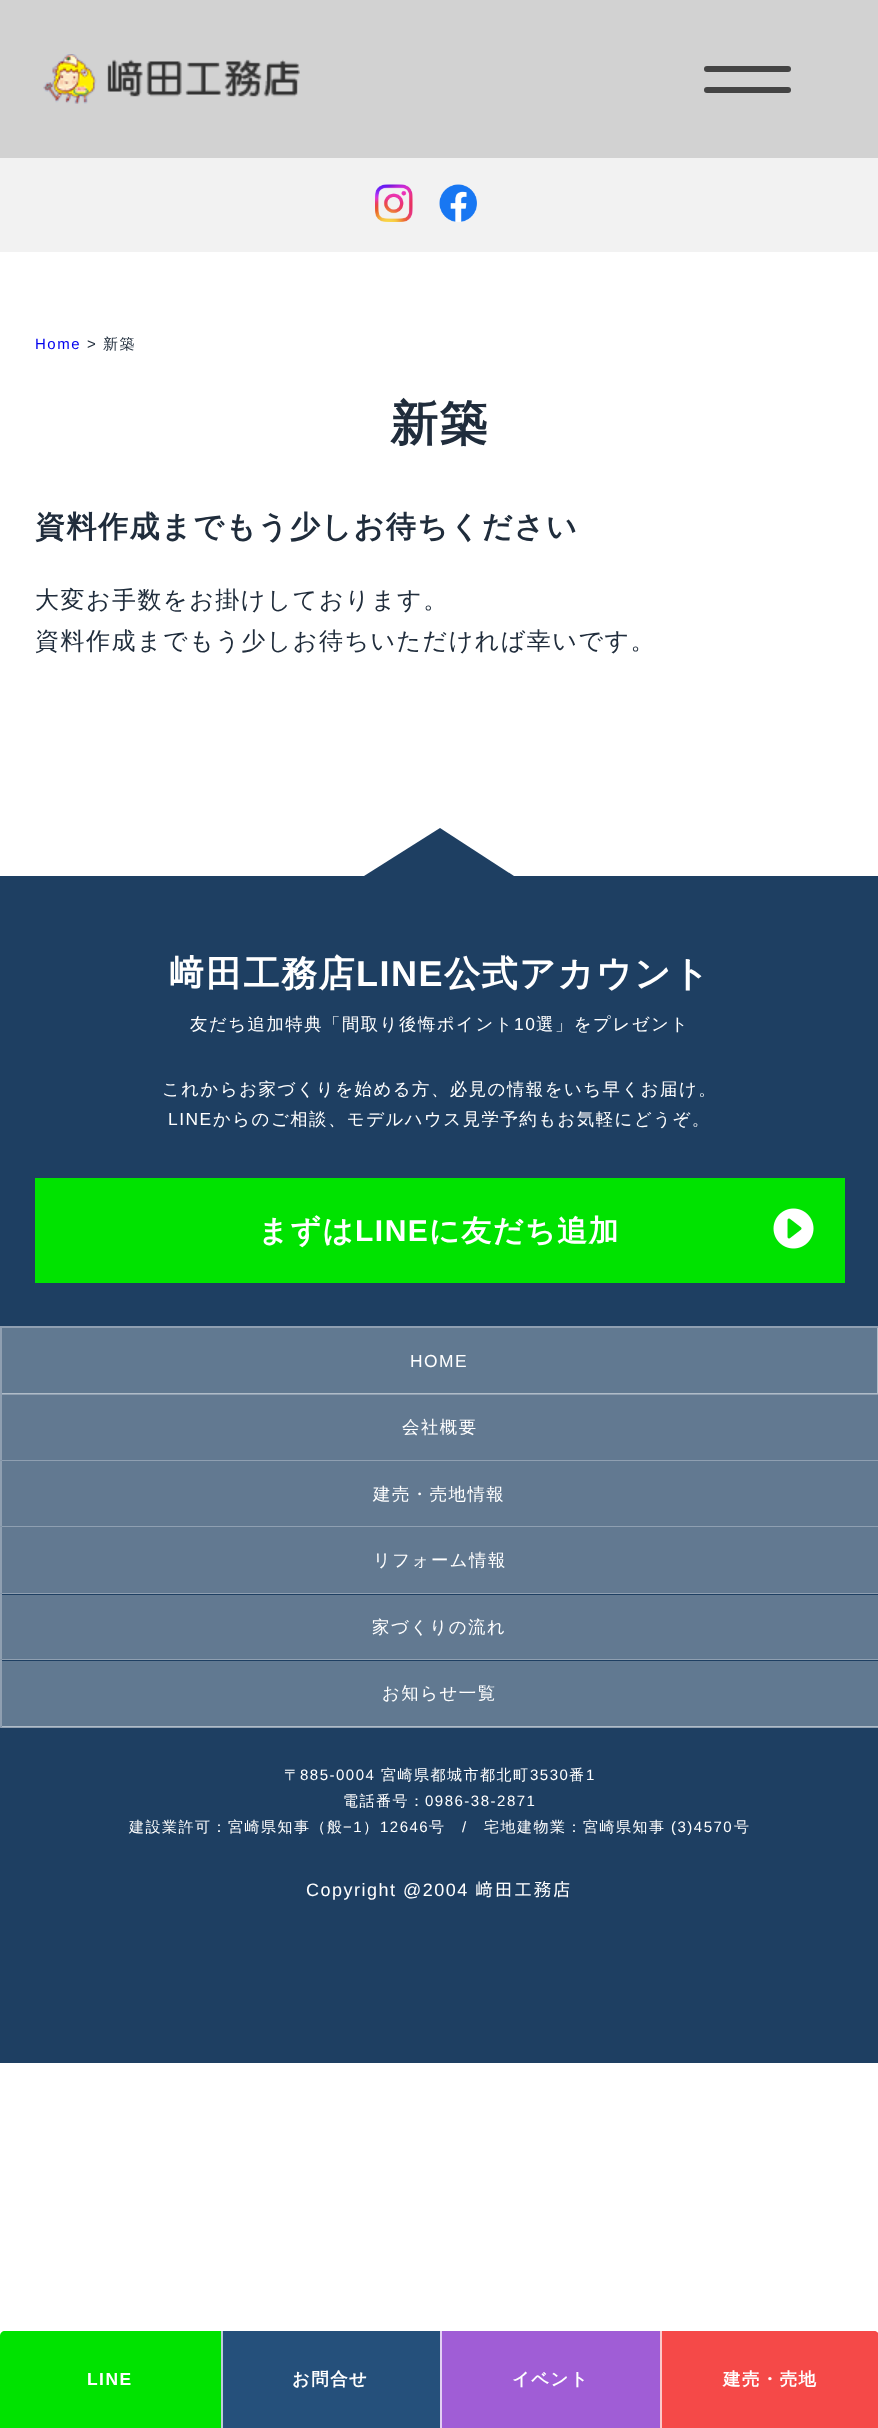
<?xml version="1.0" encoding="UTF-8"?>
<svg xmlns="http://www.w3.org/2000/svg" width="878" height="2428">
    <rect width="100%" height="100%" fill="#FFFFFF"/>
    <rect x="0" y="0" width="878" height="158" fill="#D2D2D2"/>
    <image x="43" y="54" width="257" height="50" href="img_01.png"/>
    <rect x="704" y="66" width="87" height="6" rx="3" fill="#444444"/>
    <rect x="704" y="87" width="87" height="6" rx="3" fill="#444444"/>
    <rect x="0" y="158" width="878" height="94" fill="#F2F2F2"/>
    <image x="375" y="184" width="38" height="38" href="img_02.png"/>
    <image x="439" y="184" width="38" height="38" href="img_03.png"/>
    <text x="35" y="349" font-family="Liberation Sans" font-size="15" letter-spacing="1.5" fill="#0000EE">Home</text>
    <text x="87" y="349" font-family="Liberation Sans" font-size="15" letter-spacing="1.5" fill="#202D3C">&gt;</text>
    <text x="103" y="349" font-family="WenQuanYi Zen Hei" font-size="15" font-weight="500" letter-spacing="1.5" fill="#202D3C">新築</text>
    <text x="390" y="440" font-family="WenQuanYi Zen Hei" font-size="48" font-weight="700" letter-spacing="1.5" fill="#202D3C">新築</text>
    <text x="35" y="537" font-family="WenQuanYi Zen Hei" font-size="30" font-weight="700" letter-spacing="1.5" fill="#202D3C">資料作成までもう少しお待ちください</text>
    <text font-family="WenQuanYi Zen Hei" font-size="24" font-weight="500" letter-spacing="1.5" fill="#202D3C">
        <tspan x="35" y="608">大変お手数をお掛けしております。</tspan>
        <tspan x="35" y="649">資料作成までもう少しお待ちいただければ幸いです。</tspan>
    </text>
    <path d="M 514 876 H 364 L 440 828 Z" fill="#1E3F62"/>
    <rect x="0" y="876" width="878" height="1187" fill="#1E3F62"/>
    <text x="168" y="986" font-family="IPAPGothic" font-size="36" font-weight="700" letter-spacing="1.5" fill="#FFFFFF">﨑</text>
    <text x="206" y="986" font-family="WenQuanYi Zen Hei" font-size="36" font-weight="700" letter-spacing="1.5" fill="#FFFFFF">田工務店</text>
    <text x="356" y="986" font-family="Liberation Sans" font-size="36" font-weight="700" letter-spacing="1.5" fill="#FFFFFF">LINE</text>
    <text x="444" y="986" font-family="WenQuanYi Zen Hei" font-size="36" font-weight="700" letter-spacing="1.5" fill="#FFFFFF">公式アカウント</text>
    <text x="190" y="1030" font-family="WenQuanYi Zen Hei" font-size="17.4" font-weight="500" letter-spacing="1.5" fill="#FFFFFF">友だち追加特典「間取り後悔ポイント</text>
    <text x="514" y="1030" font-family="Liberation Sans" font-size="17.4" letter-spacing="1.5" fill="#FFFFFF">10</text>
    <text x="536" y="1030" font-family="WenQuanYi Zen Hei" font-size="17.4" font-weight="500" letter-spacing="1.5" fill="#FFFFFF">選」をプレゼント</text>
    <text x="162" y="1095" font-family="WenQuanYi Zen Hei" font-size="17.4" font-weight="500" letter-spacing="1.5" fill="#FFFFFF">これからお家づくりを始める方、必見の情報をいち早くお届け。</text>
    <text x="168" y="1125" font-family="Liberation Sans" font-size="17.4" letter-spacing="1.5" fill="#FFFFFF">LINE</text>
    <text x="213" y="1125" font-family="WenQuanYi Zen Hei" font-size="17.4" font-weight="500" letter-spacing="1.5" fill="#FFFFFF">からのご相談、モデルハウス見学予約もお気軽にどうぞ。</text>
    <rect x="35" y="1178" width="810" height="105" fill="#00E300"/>
    <text x="258" y="1241" font-family="WenQuanYi Zen Hei" font-size="30" font-weight="700" letter-spacing="1.5" fill="#FFFFFF">まずは</text>
    <text x="355" y="1241" font-family="Liberation Sans" font-size="30" font-weight="700" letter-spacing="1.5" fill="#FFFFFF">LINE</text>
    <text x="429" y="1241" font-family="WenQuanYi Zen Hei" font-size="30" font-weight="700" letter-spacing="1.5" fill="#FFFFFF">に友だち追加</text>
    <image x="773" y="1208" width="41" height="41" href="img_04.png"/>
    <rect x="1" y="1327" width="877" height="67" fill="none" stroke="#8F9FB1" stroke-width="2"/>
    <rect x="2" y="1328" width="876" height="66" fill="#FFFFFF" fill-opacity="0.3"/>
    <text x="410" y="1367" font-family="Liberation Sans" font-size="17.4" letter-spacing="1.5" fill="#FFFFFF">HOME</text>
    <path d="M 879 1461 H 0 L 2 1460 H 878 Z" fill="#8F9FB1"/>
    <path d="M 0 1461 V 1395 H 2 V 1460 Z" fill="#FFFFFF" fill-opacity="0.5"/>
    <rect x="2" y="1395" width="876" height="65" fill="#627991"/>
    <text x="402" y="1433" font-family="WenQuanYi Zen Hei" font-size="17.4" font-weight="500" letter-spacing="1.5" fill="#FFFFFF">会社概要</text>
    <path d="M 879 1527 H 0 L 2 1526 H 878 Z" fill="#8F9FB1"/>
    <path d="M 0 1527 V 1461 H 2 V 1526 Z" fill="#FFFFFF" fill-opacity="0.5"/>
    <rect x="2" y="1461" width="876" height="65" fill="#627991"/>
    <text x="373" y="1500" font-family="WenQuanYi Zen Hei" font-size="17.4" font-weight="500" letter-spacing="1.5" fill="#FFFFFF">建売・売地情報</text>
    <path d="M 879 1594 H 0 L 2 1593 H 878 Z" fill="#8F9FB1"/>
    <path d="M 0 1594 V 1527 H 2 V 1593 Z" fill="#FFFFFF" fill-opacity="0.5"/>
    <rect x="2" y="1527" width="876" height="66" fill="#627991"/>
    <text x="373" y="1566" font-family="WenQuanYi Zen Hei" font-size="17.4" font-weight="500" letter-spacing="1.5" fill="#FFFFFF">リフォーム情報</text>
    <path d="M 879 1660 H 0 L 2 1659 H 878 Z" fill="#8F9FB1"/>
    <path d="M 0 1660 V 1594 H 2 V 1659 Z" fill="#FFFFFF" fill-opacity="0.5"/>
    <rect x="2" y="1595" width="876" height="64" fill="#627991"/>
    <text x="372" y="1633" font-family="WenQuanYi Zen Hei" font-size="17.4" font-weight="500" letter-spacing="1.5" fill="#FFFFFF">家づくりの流れ</text>
    <path d="M 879 1728 H 0 L 2 1726 H 878 Z" fill="#8F9FB1"/>
    <path d="M 0 1728 V 1660 H 2 V 1726 Z" fill="#FFFFFF" fill-opacity="0.5"/>
    <rect x="2" y="1661" width="876" height="66" fill="#FFFFFF" fill-opacity="0.3"/>
    <text x="382" y="1699" font-family="WenQuanYi Zen Hei" font-size="17.4" font-weight="500" letter-spacing="1.5" fill="#FFFFFF">お知らせ一覧</text>
    <text x="284" y="1780" font-family="WenQuanYi Zen Hei" font-size="15" font-weight="500" letter-spacing="1.5" fill="#FFFFFF">〒</text>
    <text x="300" y="1780" font-family="Liberation Sans" font-size="15" letter-spacing="1.5" fill="#FFFFFF">885-0004</text>
    <text x="381" y="1780" font-family="WenQuanYi Zen Hei" font-size="15" font-weight="500" letter-spacing="1.5" fill="#FFFFFF">宮崎県都城市都北町</text>
    <text x="530" y="1780" font-family="Liberation Sans" font-size="15" letter-spacing="1.5" fill="#FFFFFF">3530</text>
    <text x="569" y="1780" font-family="WenQuanYi Zen Hei" font-size="15" font-weight="500" letter-spacing="1.5" fill="#FFFFFF">番</text>
    <text x="586" y="1780" font-family="Liberation Sans" font-size="15" letter-spacing="1.5" fill="#FFFFFF">1</text>
    <text x="343" y="1806" font-family="WenQuanYi Zen Hei" font-size="15" font-weight="500" letter-spacing="1.5" fill="#FFFFFF">電話番号：</text>
    <text x="425" y="1806" font-family="Liberation Sans" font-size="15" letter-spacing="1.5" fill="#FFFFFF">0986-38-2871</text>
    <text x="129" y="1832" font-family="WenQuanYi Zen Hei" font-size="15" font-weight="500" letter-spacing="1.5" fill="#FFFFFF">建設業許可：宮崎県知事（般</text>
    <text x="343" y="1832" font-family="Liberation Sans" font-size="15" letter-spacing="1.5" fill="#FFFFFF">−1</text>
    <text x="363" y="1832" font-family="WenQuanYi Zen Hei" font-size="15" font-weight="500" letter-spacing="1.5" fill="#FFFFFF">）</text>
    <text x="380" y="1832" font-family="Liberation Sans" font-size="15" letter-spacing="1.5" fill="#FFFFFF">12646</text>
    <text x="429" y="1832" font-family="WenQuanYi Zen Hei" font-size="15" font-weight="500" letter-spacing="1.5" fill="#FFFFFF">号</text>
    <text x="462" y="1832" font-family="Liberation Sans" font-size="15" letter-spacing="1.5" fill="#FFFFFF">/</text>
    <text x="484" y="1832" font-family="WenQuanYi Zen Hei" font-size="15" font-weight="500" letter-spacing="1.5" fill="#FFFFFF">宅地建物業：宮崎県知事</text>
    <text x="671" y="1832" font-family="Liberation Sans" font-size="15" letter-spacing="1.5" fill="#FFFFFF">(3)4570</text>
    <text x="734" y="1832" font-family="WenQuanYi Zen Hei" font-size="15" font-weight="500" letter-spacing="1.5" fill="#FFFFFF">号</text>
    <text x="306" y="1896" font-family="Liberation Sans" font-size="18" letter-spacing="1.5" fill="#FFFFFF">Copyright @2004</text>
    <text x="475" y="1896" font-family="IPAPGothic" font-size="18" letter-spacing="1.5" fill="#FFFFFF">﨑田工務店</text>
    <path d="M 5 2331 H 221 V 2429 H 0 V 2336 C 0 2333 2 2331 5 2331 Z" fill="#00E300"/>
    <text x="87" y="2385" font-family="Liberation Sans" font-size="17.4" font-weight="700" letter-spacing="1.5" fill="#FFFFFF">LINE</text>
    <rect x="223" y="2331" width="217" height="97" fill="#25507B"/>
    <rect x="221" y="2331" width="2" height="97" fill="#BECBD7"/>
    <text x="292" y="2385" font-family="WenQuanYi Zen Hei" font-size="17.4" font-weight="700" letter-spacing="1.5" fill="#FFFFFF">お問合せ</text>
    <rect x="442" y="2331" width="218" height="97" fill="#A05DD6"/>
    <rect x="440" y="2331" width="2" height="97" fill="#E3CEF3"/>
    <text x="512" y="2385" font-family="WenQuanYi Zen Hei" font-size="17.4" font-weight="700" letter-spacing="1.5" fill="#FFFFFF">イベント</text>
    <path d="M 660 2331 H 874 C 877 2331 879 2333 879 2336 V 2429 H 660 Z" fill="#F54948"/>
    <rect x="660" y="2331" width="2" height="97" fill="#FCC8C8"/>
    <text x="723" y="2385" font-family="WenQuanYi Zen Hei" font-size="17.4" font-weight="700" letter-spacing="1.5" fill="#FFFFFF">建売・売地</text>
</svg>
